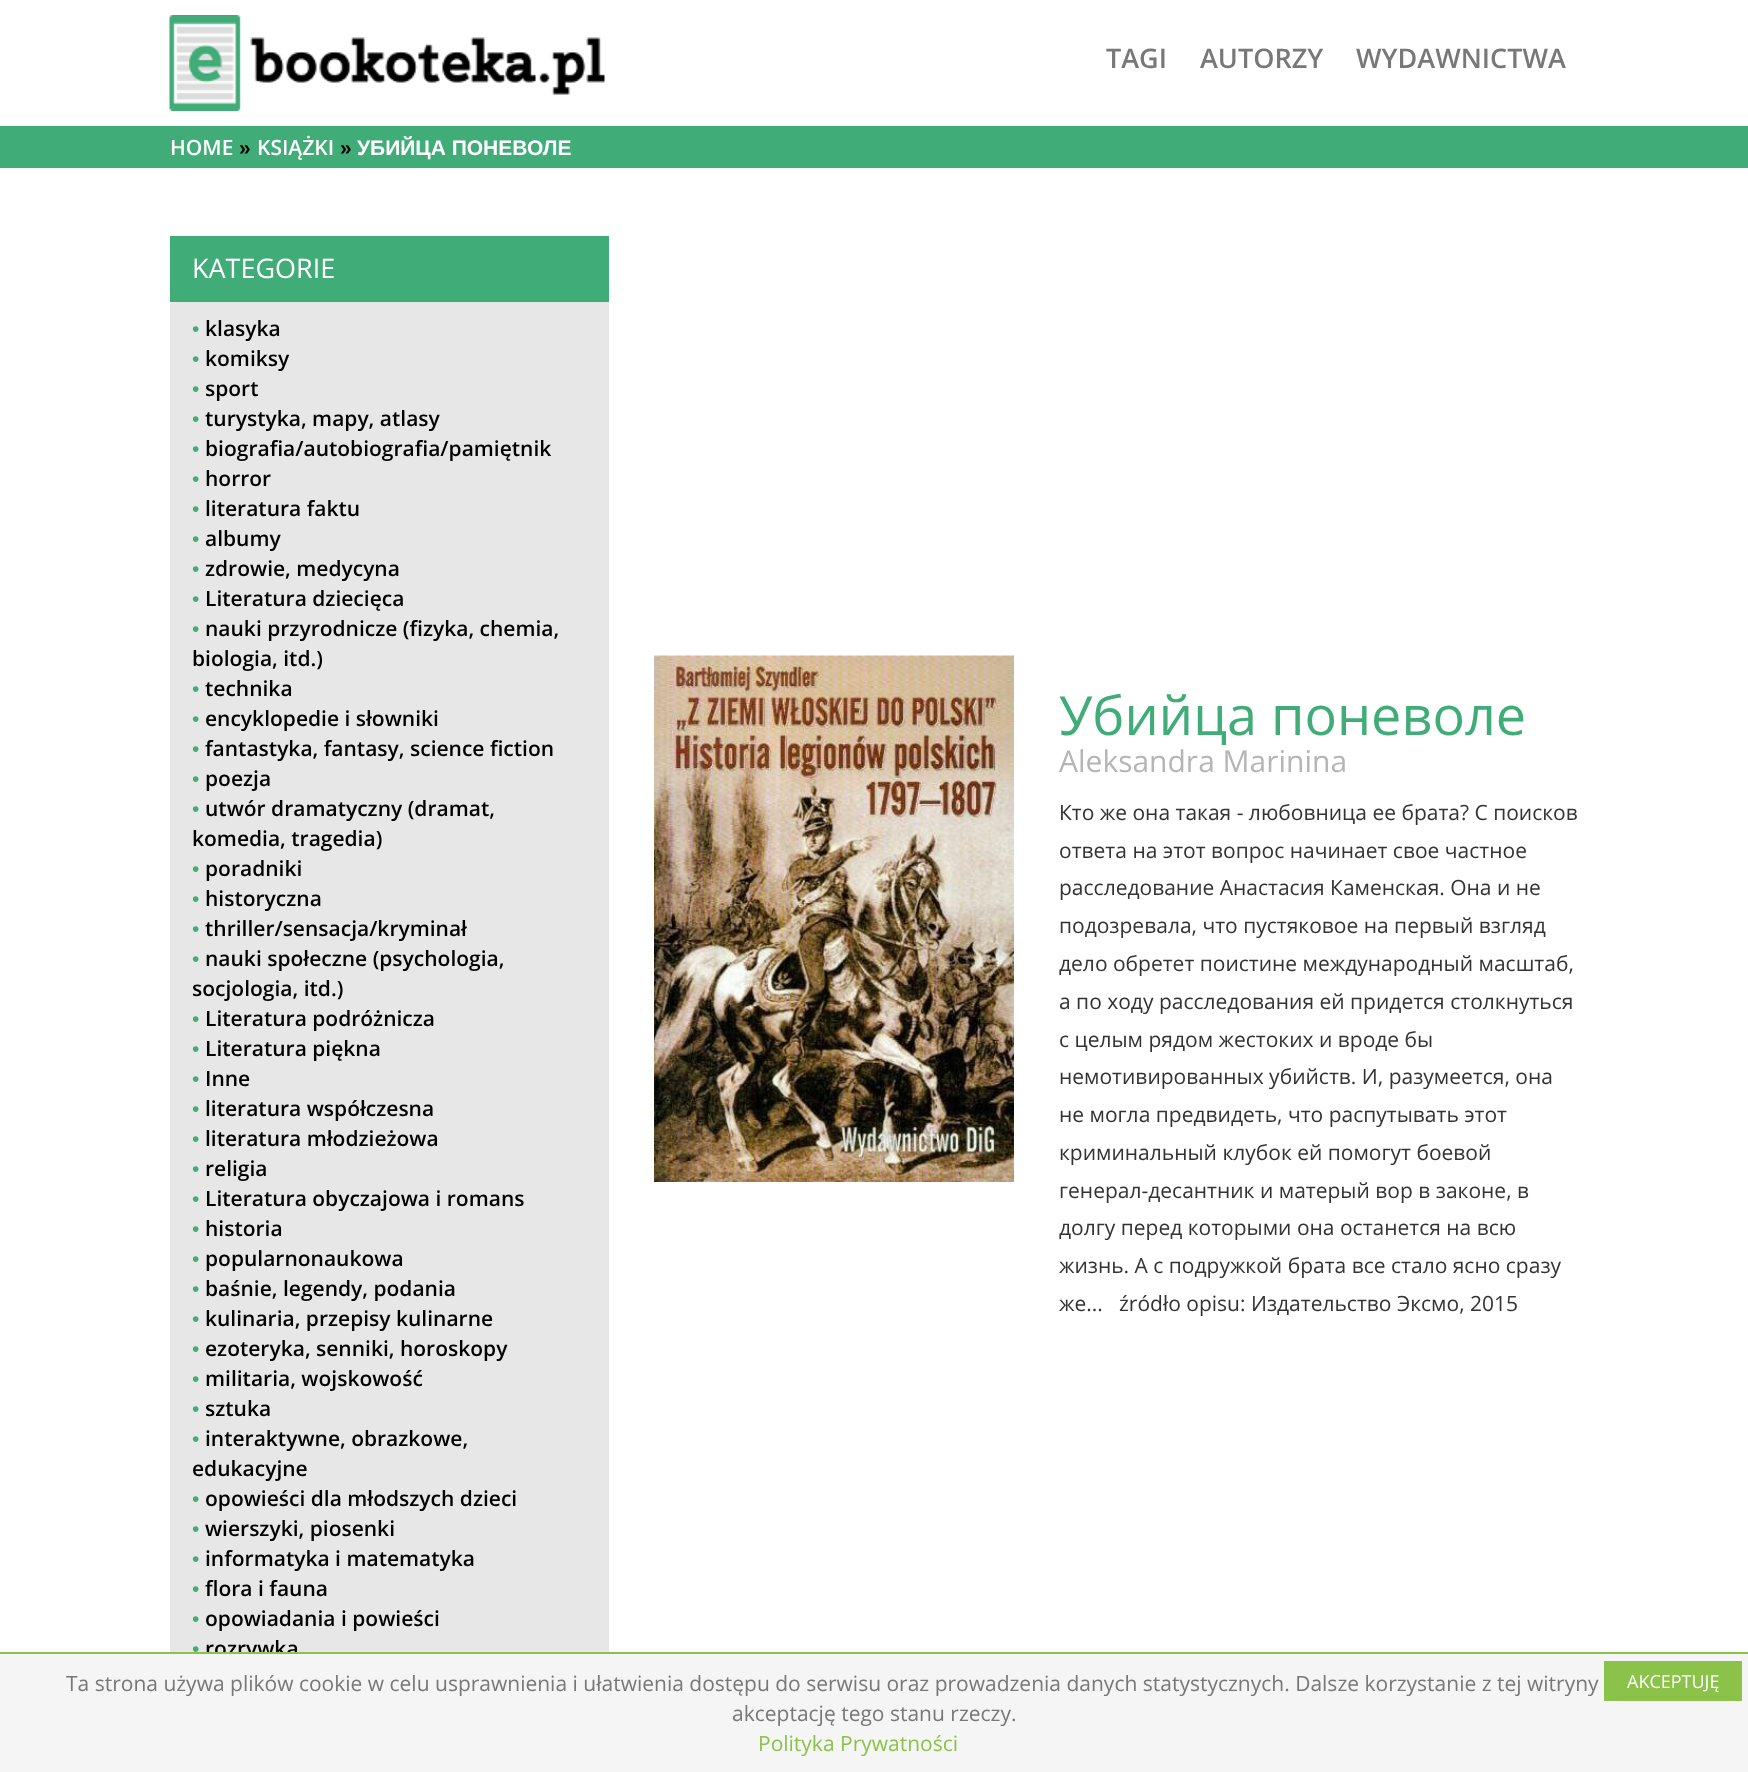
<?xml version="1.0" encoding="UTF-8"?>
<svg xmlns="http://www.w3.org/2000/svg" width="1748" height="1772">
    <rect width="100%" height="100%" fill="#FFFFFF"/>
    <image x="169" y="15" width="436" height="96" href="img_01.png"/>
    <text x="1106" y="68" font-family="Open Sans" font-size="27" font-weight="600" fill="#787878">TAGI</text>
    <text x="1200" y="68" font-family="Open Sans" font-size="27" font-weight="600" fill="#787878">AUTORZY</text>
    <text x="1356" y="68" font-family="Open Sans" font-size="27" font-weight="600" fill="#787878">WYDAWNICTWA</text>
    <rect x="0" y="126" width="1748" height="42" fill="#40AC78"/>
    <text x="170" y="155" font-family="Open Sans" font-size="21" font-weight="600" fill="#FFFFFF">HOME</text>
    <text x="239" y="155" font-family="Liberation Sans" font-size="21" font-weight="700" fill="#000000">»</text>
    <text x="257" y="155" font-family="Open Sans" font-size="21" font-weight="600" fill="#FFFFFF">KSIĄŻKI</text>
    <text x="340" y="155" font-family="Liberation Sans" font-size="21" font-weight="700" fill="#000000">»</text>
    <text x="357" y="155" font-family="Liberation Sans" font-size="21" font-weight="700" fill="#FFFFFF">УБИЙЦА ПОНЕВОЛЕ</text>
    <rect x="170" y="302" width="439" height="1350" fill="#E7E7E7"/>
    <rect x="170" y="236" width="439" height="66" fill="#40AC78"/>
    <text x="192" y="278" font-family="Open Sans" font-size="27" fill="#FFFFFF">KATEGORIE</text>
    <text x="192" y="336" font-family="Liberation Sans" font-size="21" fill="#40AC78">•</text>
    <text x="205" y="336" font-family="Open Sans" font-size="21" font-weight="600" fill="#000000">klasyka</text>
    <text x="192" y="366" font-family="Liberation Sans" font-size="21" fill="#40AC78">•</text>
    <text x="205" y="366" font-family="Open Sans" font-size="21" font-weight="600" fill="#000000">komiksy</text>
    <text x="192" y="396" font-family="Liberation Sans" font-size="21" fill="#40AC78">•</text>
    <text x="205" y="396" font-family="Open Sans" font-size="21" font-weight="600" fill="#000000">sport</text>
    <text x="192" y="426" font-family="Liberation Sans" font-size="21" fill="#40AC78">•</text>
    <text x="205" y="426" font-family="Open Sans" font-size="21" font-weight="600" fill="#000000">turystyka, mapy, atlasy</text>
    <text x="192" y="456" font-family="Liberation Sans" font-size="21" fill="#40AC78">•</text>
    <text x="205" y="456" font-family="Open Sans" font-size="21" font-weight="600" fill="#000000">biografia/autobiografia/pamiętnik</text>
    <text x="192" y="486" font-family="Liberation Sans" font-size="21" fill="#40AC78">•</text>
    <text x="205" y="486" font-family="Open Sans" font-size="21" font-weight="600" fill="#000000">horror</text>
    <text x="192" y="516" font-family="Liberation Sans" font-size="21" fill="#40AC78">•</text>
    <text x="205" y="516" font-family="Open Sans" font-size="21" font-weight="600" fill="#000000">literatura faktu</text>
    <text x="192" y="546" font-family="Liberation Sans" font-size="21" fill="#40AC78">•</text>
    <text x="205" y="546" font-family="Open Sans" font-size="21" font-weight="600" fill="#000000">albumy</text>
    <text x="192" y="576" font-family="Liberation Sans" font-size="21" fill="#40AC78">•</text>
    <text x="205" y="576" font-family="Open Sans" font-size="21" font-weight="600" fill="#000000">zdrowie, medycyna</text>
    <text x="192" y="606" font-family="Liberation Sans" font-size="21" fill="#40AC78">•</text>
    <text x="205" y="606" font-family="Open Sans" font-size="21" font-weight="600" fill="#000000">Literatura dziecięca</text>
    <text x="192" y="636" font-family="Liberation Sans" font-size="21" fill="#40AC78">•</text>
    <text x="205" y="636" font-family="Open Sans" font-size="21" font-weight="600" fill="#000000">nauki przyrodnicze (fizyka, chemia,</text>
    <text x="192" y="666" font-family="Open Sans" font-size="21" font-weight="600" fill="#000000">biologia, itd.)</text>
    <text x="192" y="696" font-family="Liberation Sans" font-size="21" fill="#40AC78">•</text>
    <text x="205" y="696" font-family="Open Sans" font-size="21" font-weight="600" fill="#000000">technika</text>
    <text x="192" y="726" font-family="Liberation Sans" font-size="21" fill="#40AC78">•</text>
    <text x="205" y="726" font-family="Open Sans" font-size="21" font-weight="600" fill="#000000">encyklopedie i słowniki</text>
    <text x="192" y="756" font-family="Liberation Sans" font-size="21" fill="#40AC78">•</text>
    <text x="205" y="756" font-family="Open Sans" font-size="21" font-weight="600" fill="#000000">fantastyka, fantasy, science fiction</text>
    <text x="192" y="786" font-family="Liberation Sans" font-size="21" fill="#40AC78">•</text>
    <text x="205" y="786" font-family="Open Sans" font-size="21" font-weight="600" fill="#000000">poezja</text>
    <text x="192" y="816" font-family="Liberation Sans" font-size="21" fill="#40AC78">•</text>
    <text x="205" y="816" font-family="Open Sans" font-size="21" font-weight="600" fill="#000000">utwór dramatyczny (dramat,</text>
    <text x="192" y="846" font-family="Open Sans" font-size="21" font-weight="600" fill="#000000">komedia, tragedia)</text>
    <text x="192" y="876" font-family="Liberation Sans" font-size="21" fill="#40AC78">•</text>
    <text x="205" y="876" font-family="Open Sans" font-size="21" font-weight="600" fill="#000000">poradniki</text>
    <text x="192" y="906" font-family="Liberation Sans" font-size="21" fill="#40AC78">•</text>
    <text x="205" y="906" font-family="Open Sans" font-size="21" font-weight="600" fill="#000000">historyczna</text>
    <text x="192" y="936" font-family="Liberation Sans" font-size="21" fill="#40AC78">•</text>
    <text x="205" y="936" font-family="Open Sans" font-size="21" font-weight="600" fill="#000000">thriller/sensacja/kryminał</text>
    <text x="192" y="966" font-family="Liberation Sans" font-size="21" fill="#40AC78">•</text>
    <text x="205" y="966" font-family="Open Sans" font-size="21" font-weight="600" fill="#000000">nauki społeczne (psychologia,</text>
    <text x="192" y="996" font-family="Open Sans" font-size="21" font-weight="600" fill="#000000">socjologia, itd.)</text>
    <text x="192" y="1026" font-family="Liberation Sans" font-size="21" fill="#40AC78">•</text>
    <text x="205" y="1026" font-family="Open Sans" font-size="21" font-weight="600" fill="#000000">Literatura podróżnicza</text>
    <text x="192" y="1056" font-family="Liberation Sans" font-size="21" fill="#40AC78">•</text>
    <text x="205" y="1056" font-family="Open Sans" font-size="21" font-weight="600" fill="#000000">Literatura piękna</text>
    <text x="192" y="1086" font-family="Liberation Sans" font-size="21" fill="#40AC78">•</text>
    <text x="205" y="1086" font-family="Open Sans" font-size="21" font-weight="600" fill="#000000">Inne</text>
    <text x="192" y="1116" font-family="Liberation Sans" font-size="21" fill="#40AC78">•</text>
    <text x="205" y="1116" font-family="Open Sans" font-size="21" font-weight="600" fill="#000000">literatura współczesna</text>
    <text x="192" y="1146" font-family="Liberation Sans" font-size="21" fill="#40AC78">•</text>
    <text x="205" y="1146" font-family="Open Sans" font-size="21" font-weight="600" fill="#000000">literatura młodzieżowa</text>
    <text x="192" y="1176" font-family="Liberation Sans" font-size="21" fill="#40AC78">•</text>
    <text x="205" y="1176" font-family="Open Sans" font-size="21" font-weight="600" fill="#000000">religia</text>
    <text x="192" y="1206" font-family="Liberation Sans" font-size="21" fill="#40AC78">•</text>
    <text x="205" y="1206" font-family="Open Sans" font-size="21" font-weight="600" fill="#000000">Literatura obyczajowa i romans</text>
    <text x="192" y="1236" font-family="Liberation Sans" font-size="21" fill="#40AC78">•</text>
    <text x="205" y="1236" font-family="Open Sans" font-size="21" font-weight="600" fill="#000000">historia</text>
    <text x="192" y="1266" font-family="Liberation Sans" font-size="21" fill="#40AC78">•</text>
    <text x="205" y="1266" font-family="Open Sans" font-size="21" font-weight="600" fill="#000000">popularnonaukowa</text>
    <text x="192" y="1296" font-family="Liberation Sans" font-size="21" fill="#40AC78">•</text>
    <text x="205" y="1296" font-family="Open Sans" font-size="21" font-weight="600" fill="#000000">baśnie, legendy, podania</text>
    <text x="192" y="1326" font-family="Liberation Sans" font-size="21" fill="#40AC78">•</text>
    <text x="205" y="1326" font-family="Open Sans" font-size="21" font-weight="600" fill="#000000">kulinaria, przepisy kulinarne</text>
    <text x="192" y="1356" font-family="Liberation Sans" font-size="21" fill="#40AC78">•</text>
    <text x="205" y="1356" font-family="Open Sans" font-size="21" font-weight="600" fill="#000000">ezoteryka, senniki, horoskopy</text>
    <text x="192" y="1386" font-family="Liberation Sans" font-size="21" fill="#40AC78">•</text>
    <text x="205" y="1386" font-family="Open Sans" font-size="21" font-weight="600" fill="#000000">militaria, wojskowość</text>
    <text x="192" y="1416" font-family="Liberation Sans" font-size="21" fill="#40AC78">•</text>
    <text x="205" y="1416" font-family="Open Sans" font-size="21" font-weight="600" fill="#000000">sztuka</text>
    <text x="192" y="1446" font-family="Liberation Sans" font-size="21" fill="#40AC78">•</text>
    <text x="205" y="1446" font-family="Open Sans" font-size="21" font-weight="600" fill="#000000">interaktywne, obrazkowe,</text>
    <text x="192" y="1476" font-family="Open Sans" font-size="21" font-weight="600" fill="#000000">edukacyjne</text>
    <text x="192" y="1506" font-family="Liberation Sans" font-size="21" fill="#40AC78">•</text>
    <text x="205" y="1506" font-family="Open Sans" font-size="21" font-weight="600" fill="#000000">opowieści dla młodszych dzieci</text>
    <text x="192" y="1536" font-family="Liberation Sans" font-size="21" fill="#40AC78">•</text>
    <text x="205" y="1536" font-family="Open Sans" font-size="21" font-weight="600" fill="#000000">wierszyki, piosenki</text>
    <text x="192" y="1566" font-family="Liberation Sans" font-size="21" fill="#40AC78">•</text>
    <text x="205" y="1566" font-family="Open Sans" font-size="21" font-weight="600" fill="#000000">informatyka i matematyka</text>
    <text x="192" y="1596" font-family="Liberation Sans" font-size="21" fill="#40AC78">•</text>
    <text x="205" y="1596" font-family="Open Sans" font-size="21" font-weight="600" fill="#000000">flora i fauna</text>
    <text x="192" y="1626" font-family="Liberation Sans" font-size="21" fill="#40AC78">•</text>
    <text x="205" y="1626" font-family="Open Sans" font-size="21" font-weight="600" fill="#000000">opowiadania i powieści</text>
    <text x="192" y="1656" font-family="Liberation Sans" font-size="21" fill="#40AC78">•</text>
    <text x="205" y="1656" font-family="Open Sans" font-size="21" font-weight="600" fill="#000000">rozrywka</text>
    <image x="654" y="655" width="360" height="527" href="img_02.png"/>
    <text x="1059" y="735" font-family="Open Sans" font-size="54" fill="#40AC78">Убийца поневоле</text>
    <text x="1059" y="772" font-family="Open Sans" font-size="30" fill="#B6B5B5">Aleksandra Marinina</text>
    <text font-family="Open Sans" font-size="21" fill="#333333">
        <tspan x="1059" y="820">Кто же она такая - любовница ее брата? С поисков</tspan>
        <tspan x="1059" y="858">ответа на этот вопрос начинает свое частное</tspan>
        <tspan x="1059" y="895">расследование Анастасия Каменская. Она и не</tspan>
        <tspan x="1059" y="933">подозревала, что пустяковое на первый взгляд</tspan>
        <tspan x="1059" y="971">дело обретет поистине международный масштаб,</tspan>
        <tspan x="1059" y="1009">а по ходу расследования ей придется столкнуться</tspan>
        <tspan x="1059" y="1047">с целым рядом жестоких и вроде бы</tspan>
        <tspan x="1059" y="1084">немотивированных убийств. И, разумеется, она</tspan>
        <tspan x="1059" y="1122">не могла предвидеть, что распутывать этот</tspan>
        <tspan x="1059" y="1160">криминальный клубок ей помогут боевой</tspan>
        <tspan x="1059" y="1198">генерал-десантник и матерый вор в законе, в</tspan>
        <tspan x="1059" y="1235">долгу перед которыми она останется на всю</tspan>
        <tspan x="1059" y="1273">жизнь. А с подружкой брата все стало ясно сразу</tspan>
        <tspan x="1059" y="1311">же...</tspan>
    </text>
    <text x="1119" y="1311" font-family="Open Sans" font-size="21" fill="#333333">źródło opisu: Издательство Эксмо, 2015</text>
    <rect x="0" y="1654" width="1748" height="118" fill="#F5F5F5"/>
    <rect x="0" y="1652" width="1748" height="2" fill="#8BC34A"/>
    <text x="66" y="1691" font-family="Open Sans" font-size="21" fill="#787878">Ta strona używa plików cookie w celu usprawnienia i ułatwienia dostępu do serwisu oraz prowadzenia danych statystycznych. Dalsze korzystanie z tej witryny</text>
    <rect x="1604" y="1661" width="138" height="40" fill="#8BC34A"/>
    <text x="1627" y="1688" font-family="Open Sans" font-size="18" fill="#FFFFFF">AKCEPTUJĘ</text>
    <text x="732" y="1721" font-family="Open Sans" font-size="21" fill="#787878">akceptację tego stanu rzeczy.</text>
    <text x="758" y="1751" font-family="Open Sans" font-size="21" fill="#8BC34A">Polityka Prywatności</text>
</svg>
